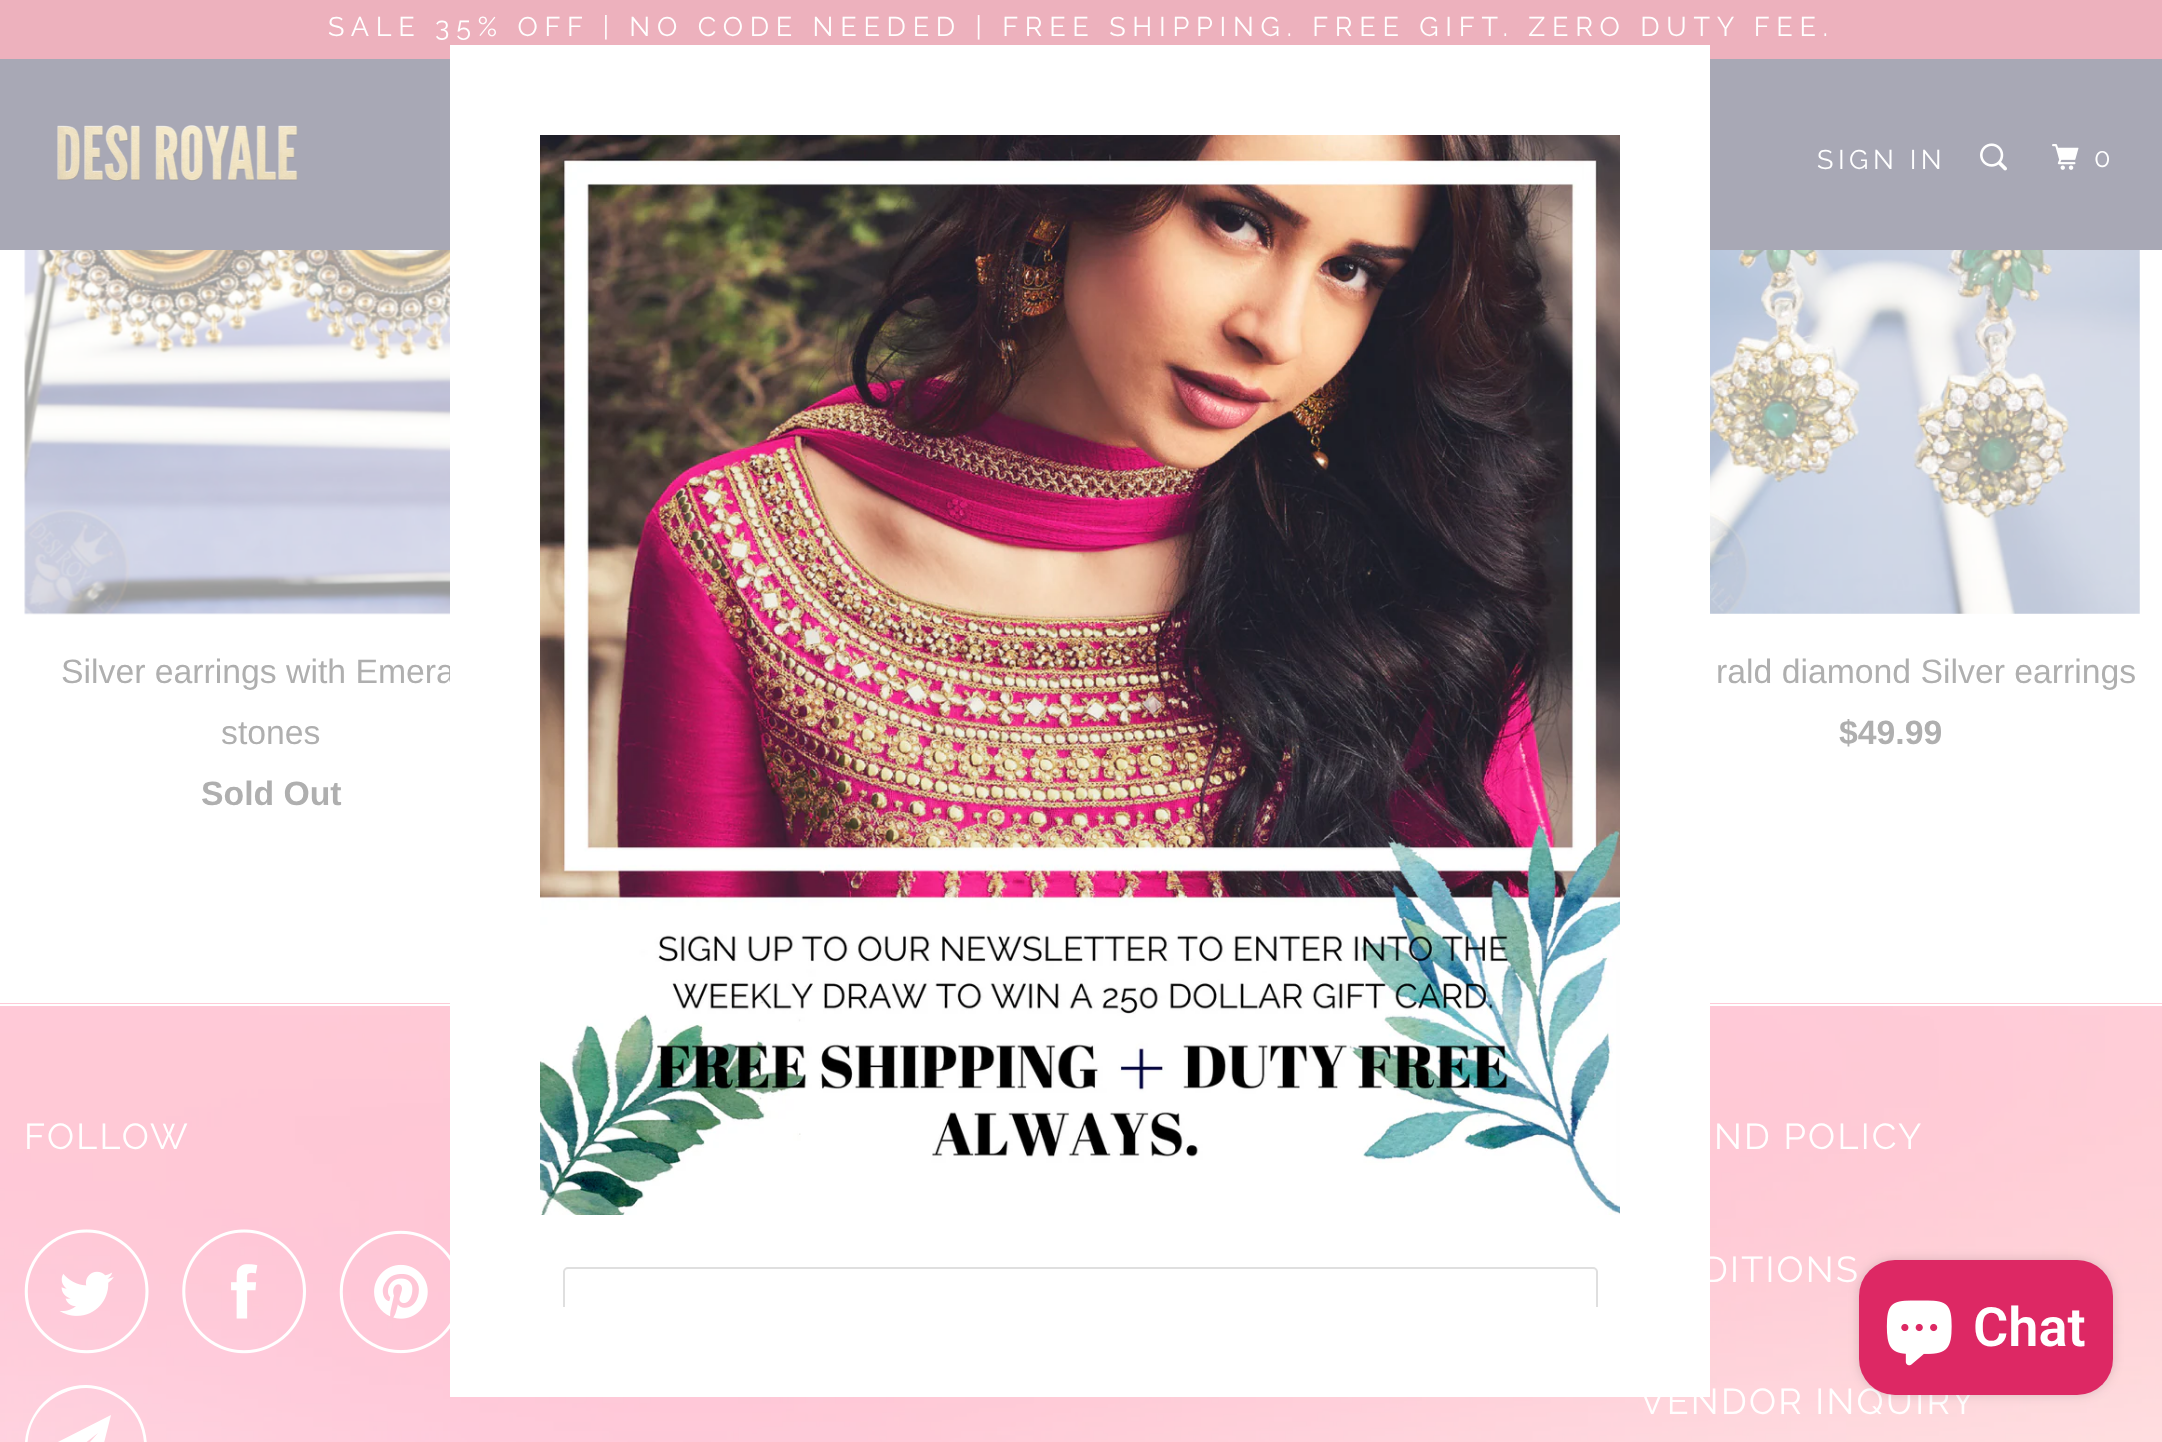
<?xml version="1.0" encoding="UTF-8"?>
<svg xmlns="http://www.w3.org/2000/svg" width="2162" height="1442">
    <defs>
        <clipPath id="clip1"><rect x="540" y="135" width="1080" height="1172"/></clipPath>
        <filter id="blur1" x="-50%" y="-200%" width="200%" height="500%"><feGaussianBlur stdDeviation="5.5"/></filter>
    </defs>
    <rect width="100%" height="100%" fill="#FFFFFF"/>
    <rect x="0" y="0" width="2162" height="59" fill="#EDB1BD"/>
    <text x="328" y="36" font-family="Raleway" font-size="27" letter-spacing="6.75" fill="#FFFFFF">SALE 35% OFF | NO CODE NEEDED | FREE SHIPPING. FREE GIFT. ZERO DUTY FEE.</text>
    <rect x="0" y="59" width="2162" height="191" fill="#A8A8B5"/>
    <image x="57" y="125" width="241" height="57" href="img_01.png"/>
    <text x="1817" y="169" font-family="Raleway" font-size="27" letter-spacing="4.5" fill="#FFFFFF">SIGN IN</text>
    <image x="1980" y="143" width="27" height="28" href="img_02.png"/>
    <image x="2052" y="144" width="27" height="26" href="img_03.png"/>
    <text x="2094" y="167" font-family="Raleway" font-size="27" letter-spacing="4.5" fill="#FFFFFF">0</text>
    <image x="24" y="250" width="426" height="365" href="img_04.png"/>
    <text x="61" y="683" font-family="Liberation Sans" font-size="33.75" fill="#AFAFAF">Silver earrings with Emera</text>
    <text x="221" y="744" font-family="Liberation Sans" font-size="33.75" fill="#AFAFAF">stones</text>
    <text x="201" y="805" font-family="Liberation Sans" font-size="33.75" font-weight="700" fill="#AFAFAF">Sold Out</text>
    <image x="1710" y="250" width="430" height="364" href="img_05.png"/>
    <text x="1716" y="683" font-family="Liberation Sans" font-size="33.75" fill="#AFAFAF">rald diamond Silver earrings</text>
    <text x="1839" y="744" font-family="Liberation Sans" font-size="33.75" font-weight="700" fill="#AFAFAF">$49.99</text>
    <image x="0" y="1003" width="2162" height="439" href="img_06.png"/>
    <rect x="0" y="1004" width="2162" height="2" fill="#FFFFFF"/>
    <text x="24" y="1149" font-family="Raleway" font-size="36" letter-spacing="2.25" fill="#FFFFFF">FOLLOW</text>
    <image x="24" y="1229" width="125" height="125" href="img_07.png"/>
    <image x="182" y="1229" width="124" height="125" href="img_08.png"/>
    <image x="339" y="1230" width="111" height="124" href="img_09.png"/>
    <path d="M 96 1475 L 84 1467 L 74 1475 V 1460 L 98 1433 L 69 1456 L 52 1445 L 111 1415 Z M 86 1388 C 73 1388 61 1393 51 1400 C 6 1433 30 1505 86 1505 C 142 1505 165 1433 121 1400 C 111 1393 99 1388 86 1388 Z M 86 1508 C 73 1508 60 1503 49 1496 C 2 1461 28 1385 86 1385 C 99 1385 112 1390 123 1398 C 169 1433 144 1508 86 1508 Z" fill="#FFFFFF"/>
    <text x="1714" y="1149" font-family="Raleway" font-size="36" letter-spacing="2.25" fill="#FFFFFF">ND POLICY</text>
    <text x="1702" y="1282" font-family="Raleway" font-size="36" letter-spacing="2.25" fill="#FFFFFF">DITIONS</text>
    <text x="1640" y="1414" font-family="Raleway" font-size="36" letter-spacing="2.25" fill="#FFFFFF">VENDOR INQUIRY</text>
    <rect x="450" y="45" width="1260" height="1352" fill="#FFFFFF"/>
    <image x="540" y="135" width="1080" height="1080" href="img_10.png"/>
    <g clip-path="url(#clip1)">
        <rect x="564" y="1268" width="1033" height="88" rx="4" fill="none" stroke="#DFDFDF" stroke-width="2"/>
    </g>
    <rect x="1859" y="1260" width="254" height="135" rx="36" fill="#000000" fill-opacity="0.15" filter="url(#blur1)"/>
    <rect x="1859" y="1260" width="254" height="135" rx="36" fill="#DD2864"/>
    <image x="1886" y="1300" width="66" height="66" href="img_11.png"/>
    <text x="1973" y="1346" font-family="Roboto" font-size="54" font-weight="600" fill="#FFFFFF">Chat</text>
</svg>
